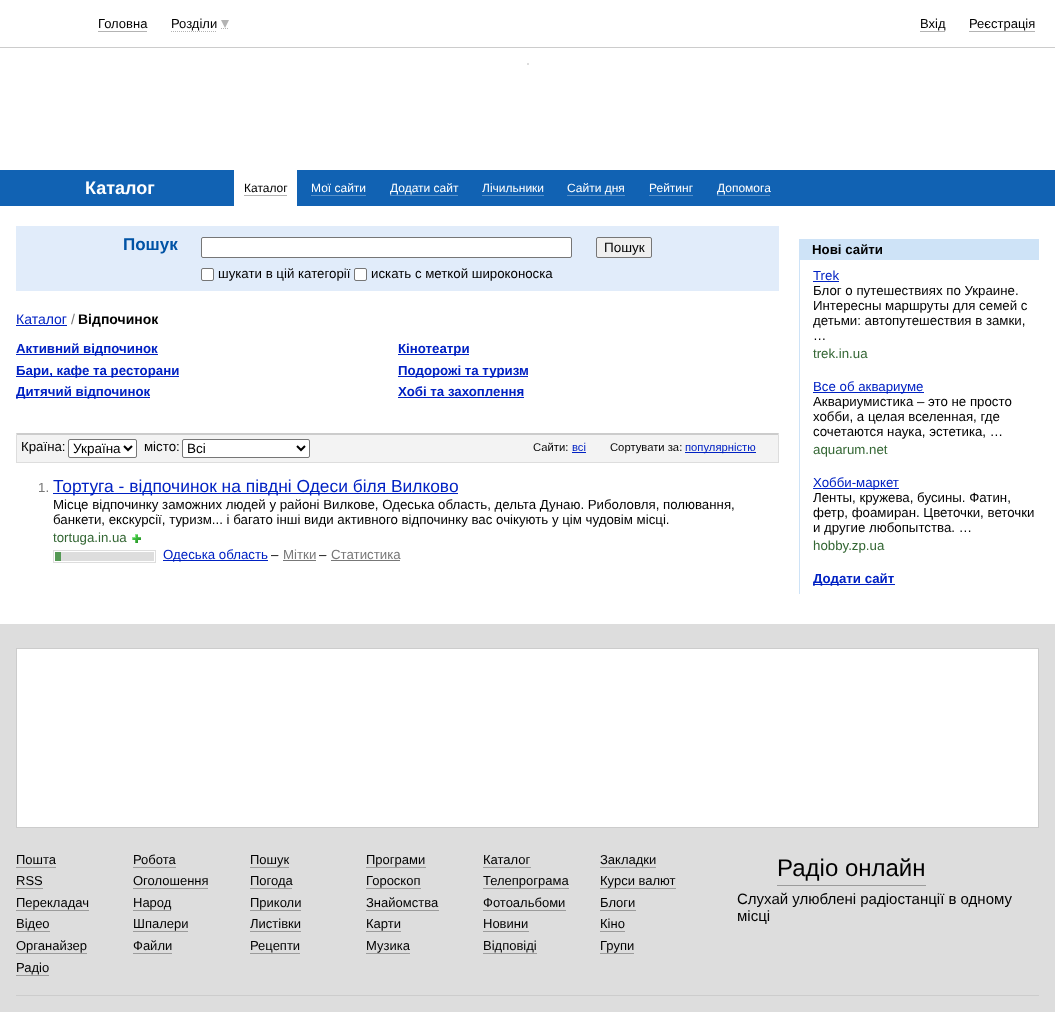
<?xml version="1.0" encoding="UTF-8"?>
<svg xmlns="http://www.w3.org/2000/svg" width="1055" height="1012">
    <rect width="100%" height="100%" fill="#FFFFFF"/>
    <rect x="0" y="47" width="1055" height="1" fill="#CCCCCC"/>
    <text x="98" y="28" font-family="Liberation Sans" font-size="13" fill="#000000">Головна</text>
    <rect x="98" y="31" width="49" height="1" fill="#B3B3B3"/>
    <path d="M 171 31.5 H 217 M 221 28.5 H 229" fill="none" stroke="#B3B3B3" stroke-dasharray="1 1"/>
    <text x="171" y="28" font-family="Liberation Sans" font-size="13" fill="#000000">Розділи</text>
    <path d="M 221 20 H 229 L 225 28 Z" fill="#B3B3B3"/>
    <text x="920" y="28" font-family="Liberation Sans" font-size="13" fill="#000000">Вхід</text>
    <rect x="920" y="31" width="25" height="1" fill="#B3B3B3"/>
    <text x="969" y="28" font-family="Liberation Sans" font-size="13" fill="#000000">Реєстрація</text>
    <rect x="969" y="31" width="66" height="1" fill="#B3B3B3"/>
    <rect x="527" y="63" width="2" height="2" fill="#DDDDDD"/>
    <rect x="0" y="170" width="1055" height="36" fill="#1162B3"/>
    <text x="85" y="194" font-family="Liberation Sans" font-size="18" font-weight="700" fill="#FFFFFF">Каталог</text>
    <rect x="234" y="170" width="63" height="36" fill="#FFFFFF"/>
    <text x="244" y="192" font-family="Liberation Sans" font-size="12" fill="#000000">Каталог</text>
    <rect x="244" y="195" width="43" height="1" fill="#B3B3B3"/>
    <text x="311" y="192" font-family="Liberation Sans" font-size="12" fill="#FFFFFF">Мої сайти</text>
    <rect x="311" y="195" width="55" height="1" fill="#5891CA"/>
    <text x="390" y="192" font-family="Liberation Sans" font-size="12" fill="#FFFFFF">Додати сайт</text>
    <rect x="390" y="195" width="68" height="1" fill="#5891CA"/>
    <text x="482" y="192" font-family="Liberation Sans" font-size="12" fill="#FFFFFF">Лічильники</text>
    <rect x="482" y="195" width="62" height="1" fill="#5891CA"/>
    <text x="567" y="192" font-family="Liberation Sans" font-size="12" fill="#FFFFFF">Сайти дня</text>
    <rect x="567" y="195" width="58" height="1" fill="#5891CA"/>
    <text x="649" y="192" font-family="Liberation Sans" font-size="12" fill="#FFFFFF">Рейтинг</text>
    <rect x="649" y="195" width="44" height="1" fill="#5891CA"/>
    <text x="717" y="192" font-family="Liberation Sans" font-size="12" fill="#FFFFFF">Допомога</text>
    <rect x="717" y="195" width="53" height="1" fill="#5891CA"/>
    <rect x="16" y="226" width="763" height="65" fill="#E1ECFA"/>
    <text x="123" y="250" font-family="Liberation Sans" font-size="17" font-weight="700" fill="#0053A5">Пошук</text>
    <rect x="596.5" y="237.5" width="55" height="20" rx="1.5" fill="#EFEFEF" stroke="#767676"/>
    <text x="604" y="252" font-family="Liberation Sans" font-size="13.5" fill="#000000">Пошук</text>
    <rect x="201.5" y="237.5" width="370" height="20" rx="1.5" fill="#FFFFFF" stroke="#767676"/>
    <rect x="201.5" y="268.5" width="12" height="12" rx="1.5" fill="#FFFFFF" stroke="#767676"/>
    <text x="218" y="278" font-family="Liberation Sans" font-size="13.28" fill="#000000">шукати в цій категорії</text>
    <rect x="354.5" y="268.5" width="12" height="12" rx="1.5" fill="#FFFFFF" stroke="#767676"/>
    <text x="371" y="278" font-family="Liberation Sans" font-size="13.28" fill="#000000">искать c меткой широконоска</text>
    <text x="16" y="324" font-family="Liberation Sans" font-size="14" fill="#0021C3">Каталог</text>
    <rect x="16" y="325" width="51" height="1" fill="#0021C3"/>
    <text x="71" y="324" font-family="Liberation Sans" font-size="14" fill="#777777">/</text>
    <text x="78" y="324" font-family="Liberation Sans" font-size="14" font-weight="700" fill="#000000">Відпочинок</text>
    <rect x="16" y="354" width="142" height="1" fill="#0021C3"/>
    <text x="16" y="353" font-family="Liberation Sans" font-size="13.28" font-weight="700" fill="#0021C3">Активний відпочинок</text>
    <rect x="16" y="376" width="163" height="1" fill="#0021C3"/>
    <text x="16" y="375" font-family="Liberation Sans" font-size="13.28" font-weight="700" fill="#0021C3">Бари, кафе та ресторани</text>
    <rect x="16" y="397" width="134" height="1" fill="#0021C3"/>
    <text x="16" y="396" font-family="Liberation Sans" font-size="13.28" font-weight="700" fill="#0021C3">Дитячий відпочинок</text>
    <rect x="398" y="354" width="71" height="1" fill="#0021C3"/>
    <text x="398" y="353" font-family="Liberation Sans" font-size="13.28" font-weight="700" fill="#0021C3">Кінотеатри</text>
    <rect x="398" y="376" width="130" height="1" fill="#0021C3"/>
    <text font-family="Liberation Sans" font-size="13.28" font-weight="700" fill="#0021C3">
        <tspan x="398" y="375">Подорожі та туризм</tspan>
        <tspan x="398" y="396">Хобі та захоплення</tspan>
    </text>
    <rect x="398" y="397" width="126" height="1" fill="#0021C3"/>
    <rect x="17" y="435" width="761" height="27" fill="#F3F3F3"/>
    <path d="M 16 433 H 779 L 778 435 H 17 Z" fill="#CCCCCC"/>
    <path d="M 779 433 V 463 L 778 462 V 435 Z" fill="#DDDDDD"/>
    <rect x="16" y="462" width="763" height="1" fill="#DDDDDD"/>
    <path d="M 16 463 V 433 L 17 435 V 462 Z" fill="#DDDDDD"/>
    <text x="21" y="451" font-family="Liberation Sans" font-size="13.28" fill="#000000">Країна:</text>
    <rect x="68.5" y="439.5" width="68" height="18" rx="1.5" fill="#FFFFFF" stroke="#767676"/>
    <path d="M 124 446 L 128 450 L 132 446" fill="none" stroke="#000000" stroke-width="2"/>
    <text x="73" y="453" font-family="Liberation Sans" font-size="13.5" fill="#000000">Україна</text>
    <text x="144" y="451" font-family="Liberation Sans" font-size="13.28" fill="#000000">місто:</text>
    <rect x="182.5" y="439.5" width="127" height="18" rx="1.5" fill="#FFFFFF" stroke="#767676"/>
    <path d="M 297 446 L 301 450 L 305 446" fill="none" stroke="#000000" stroke-width="2"/>
    <text x="187" y="453" font-family="Liberation Sans" font-size="13.5" fill="#000000">Всі</text>
    <text x="533" y="451" font-family="Liberation Sans" font-size="11.25" fill="#000000">Сайти:</text>
    <text x="572" y="451" font-family="Liberation Sans" font-size="11.25" fill="#0021C3">всі</text>
    <rect x="572" y="452" width="14" height="1" fill="#0021C3"/>
    <text x="610" y="451" font-family="Liberation Sans" font-size="11.25" fill="#000000">Сортувати за:</text>
    <rect x="685" y="452" width="71" height="1" fill="#0021C3"/>
    <text x="685" y="451" font-family="Liberation Sans" font-size="11.25" fill="#0021C3">популярністю</text>
    <text x="38" y="492" font-family="Liberation Sans" font-size="13.28" fill="#777777">1.</text>
    <rect x="53" y="493" width="405" height="1" fill="#0021C3"/>
    <text x="53" y="492" font-family="Liberation Sans" font-size="17.4" fill="#0021C3">Тортуга - відпочинок на півдні Одеси біля Вилково</text>
    <text font-family="Liberation Sans" font-size="13.28" fill="#000000">
        <tspan x="53" y="509">Місце відпочинку заможних людей у районі Вилкове, Одеська область, дельта Дунаю. Риболовля, полювання,</tspan>
        <tspan x="53" y="524">банкети, екскурсії, туризм... і багато інші види активного відпочинку вас очікують у цім чудовім місці.</tspan>
    </text>
    <text x="53" y="542" font-family="Liberation Sans" font-size="13.28" fill="#336633">tortuga.in.ua</text>
    <image x="132" y="534" width="9" height="9" href="img_01.png"/>
    <rect x="53.5" y="550.5" width="102" height="12" fill="none" stroke="#DDDDDD"/>
    <rect x="61" y="552" width="93" height="9" fill="#DDDDDD"/>
    <rect x="55" y="552" width="6" height="9" fill="#559955"/>
    <rect x="163" y="560" width="105" height="1" fill="#0021C3"/>
    <text x="163" y="559" font-family="Liberation Sans" font-size="13.28" fill="#0021C3">Одеська область</text>
    <text x="271" y="559" font-family="Liberation Sans" font-size="13.28" fill="#000000">–</text>
    <text x="283" y="559" font-family="Liberation Sans" font-size="13.28" fill="#777777">Мітки</text>
    <rect x="283" y="560" width="33" height="1" fill="#777777"/>
    <text x="319" y="559" font-family="Liberation Sans" font-size="13.28" fill="#000000">–</text>
    <text x="331" y="559" font-family="Liberation Sans" font-size="13.28" fill="#777777">Статистика</text>
    <rect x="331" y="560" width="69" height="1" fill="#777777"/>
    <rect x="799" y="239" width="240" height="21" fill="#CEE3F7"/>
    <text x="812" y="254" font-family="Liberation Sans" font-size="13.28" font-weight="700" fill="#000000">Нові сайти</text>
    <rect x="799" y="260" width="1" height="334" fill="#CEE3F7"/>
    <text x="813" y="280" font-family="Liberation Sans" font-size="13.28" fill="#0021C3">Trek</text>
    <rect x="813" y="281" width="26" height="1" fill="#0021C3"/>
    <text font-family="Liberation Sans" font-size="13.28" fill="#000000">
        <tspan x="813" y="295">Блог о путешествиях по Украине.</tspan>
        <tspan x="813" y="310">Интересны маршруты для семей с</tspan>
        <tspan x="813" y="325">детьми: автопутешествия в замки,</tspan>
        <tspan x="813" y="340">…</tspan>
    </text>
    <text x="813" y="358" font-family="Liberation Sans" font-size="13.28" fill="#336633">trek.in.ua</text>
    <rect x="813" y="392" width="111" height="1" fill="#0021C3"/>
    <text x="813" y="391" font-family="Liberation Sans" font-size="13.28" fill="#0021C3">Все об аквариуме</text>
    <text font-family="Liberation Sans" font-size="13.28" fill="#000000">
        <tspan x="813" y="406">Аквариумистика – это не просто</tspan>
        <tspan x="813" y="421">хобби, а целая вселенная, где</tspan>
        <tspan x="813" y="436">сочетаются наука, эстетика, …</tspan>
    </text>
    <text x="813" y="454" font-family="Liberation Sans" font-size="13.28" fill="#336633">aquarum.net</text>
    <rect x="813" y="488" width="86" height="1" fill="#0021C3"/>
    <text x="813" y="487" font-family="Liberation Sans" font-size="13.28" fill="#0021C3">Хобби-маркет</text>
    <text font-family="Liberation Sans" font-size="13.28" fill="#000000">
        <tspan x="813" y="502">Ленты, кружева, бусины. Фатин,</tspan>
        <tspan x="813" y="517">фетр, фоамиран. Цветочки, веточки</tspan>
        <tspan x="813" y="532">и другие любопытства. …</tspan>
    </text>
    <text x="813" y="550" font-family="Liberation Sans" font-size="13.28" fill="#336633">hobby.zp.ua</text>
    <rect x="813" y="584" width="82" height="1" fill="#0021C3"/>
    <text x="813" y="583" font-family="Liberation Sans" font-size="13.28" font-weight="700" fill="#0021C3">Додати сайт</text>
    <rect x="0" y="624" width="1055" height="388" fill="#DDDDDD"/>
    <rect x="16.5" y="648.5" width="1022" height="179" fill="#FFFFFF" stroke="#CCCCCC"/>
    <text x="16" y="864" font-family="Liberation Sans" font-size="13" fill="#000000">Пошта</text>
    <rect x="16" y="867" width="40" height="1" fill="#9B9B9B"/>
    <text x="133" y="864" font-family="Liberation Sans" font-size="13" fill="#000000">Робота</text>
    <rect x="133" y="867" width="43" height="1" fill="#9B9B9B"/>
    <text x="250" y="864" font-family="Liberation Sans" font-size="13" fill="#000000">Пошук</text>
    <rect x="250" y="867" width="39" height="1" fill="#9B9B9B"/>
    <text x="366" y="864" font-family="Liberation Sans" font-size="13" fill="#000000">Програми</text>
    <rect x="366" y="867" width="60" height="1" fill="#9B9B9B"/>
    <text x="483" y="864" font-family="Liberation Sans" font-size="13" fill="#000000">Каталог</text>
    <rect x="483" y="867" width="48" height="1" fill="#9B9B9B"/>
    <text x="600" y="864" font-family="Liberation Sans" font-size="13" fill="#000000">Закладки</text>
    <rect x="600" y="867" width="56" height="1" fill="#9B9B9B"/>
    <text x="16" y="885" font-family="Liberation Sans" font-size="13" fill="#000000">RSS</text>
    <rect x="16" y="888" width="27" height="1" fill="#9B9B9B"/>
    <text x="133" y="885" font-family="Liberation Sans" font-size="13" fill="#000000">Оголошення</text>
    <rect x="133" y="888" width="75" height="1" fill="#9B9B9B"/>
    <text x="250" y="885" font-family="Liberation Sans" font-size="13" fill="#000000">Погода</text>
    <rect x="250" y="888" width="42" height="1" fill="#9B9B9B"/>
    <text x="366" y="885" font-family="Liberation Sans" font-size="13" fill="#000000">Гороскоп</text>
    <rect x="366" y="888" width="55" height="1" fill="#9B9B9B"/>
    <text x="483" y="885" font-family="Liberation Sans" font-size="13" fill="#000000">Телепрограма</text>
    <rect x="483" y="888" width="86" height="1" fill="#9B9B9B"/>
    <text x="600" y="885" font-family="Liberation Sans" font-size="13" fill="#000000">Курси валют</text>
    <rect x="600" y="888" width="76" height="1" fill="#9B9B9B"/>
    <text x="16" y="907" font-family="Liberation Sans" font-size="13" fill="#000000">Перекладач</text>
    <rect x="16" y="910" width="73" height="1" fill="#9B9B9B"/>
    <text x="133" y="907" font-family="Liberation Sans" font-size="13" fill="#000000">Народ</text>
    <rect x="133" y="910" width="38" height="1" fill="#9B9B9B"/>
    <text x="250" y="907" font-family="Liberation Sans" font-size="13" fill="#000000">Приколи</text>
    <rect x="250" y="910" width="51" height="1" fill="#9B9B9B"/>
    <text x="366" y="907" font-family="Liberation Sans" font-size="13" fill="#000000">Знайомства</text>
    <rect x="366" y="910" width="73" height="1" fill="#9B9B9B"/>
    <text x="483" y="907" font-family="Liberation Sans" font-size="13" fill="#000000">Фотоальбоми</text>
    <rect x="483" y="910" width="83" height="1" fill="#9B9B9B"/>
    <text x="600" y="907" font-family="Liberation Sans" font-size="13" fill="#000000">Блоги</text>
    <rect x="600" y="910" width="36" height="1" fill="#9B9B9B"/>
    <text x="16" y="928" font-family="Liberation Sans" font-size="13" fill="#000000">Відео</text>
    <rect x="16" y="931" width="34" height="1" fill="#9B9B9B"/>
    <text x="133" y="928" font-family="Liberation Sans" font-size="13" fill="#000000">Шпалери</text>
    <rect x="133" y="931" width="55" height="1" fill="#9B9B9B"/>
    <text x="250" y="928" font-family="Liberation Sans" font-size="13" fill="#000000">Листівки</text>
    <rect x="250" y="931" width="51" height="1" fill="#9B9B9B"/>
    <text x="366" y="928" font-family="Liberation Sans" font-size="13" fill="#000000">Карти</text>
    <rect x="366" y="931" width="35" height="1" fill="#9B9B9B"/>
    <text x="483" y="928" font-family="Liberation Sans" font-size="13" fill="#000000">Новини</text>
    <rect x="483" y="931" width="46" height="1" fill="#9B9B9B"/>
    <text x="600" y="928" font-family="Liberation Sans" font-size="13" fill="#000000">Кіно</text>
    <rect x="600" y="931" width="25" height="1" fill="#9B9B9B"/>
    <text x="16" y="950" font-family="Liberation Sans" font-size="13" fill="#000000">Органайзер</text>
    <rect x="16" y="953" width="71" height="1" fill="#9B9B9B"/>
    <text x="133" y="950" font-family="Liberation Sans" font-size="13" fill="#000000">Файли</text>
    <rect x="133" y="953" width="39" height="1" fill="#9B9B9B"/>
    <text x="250" y="950" font-family="Liberation Sans" font-size="13" fill="#000000">Рецепти</text>
    <rect x="250" y="953" width="50" height="1" fill="#9B9B9B"/>
    <text x="366" y="950" font-family="Liberation Sans" font-size="13" fill="#000000">Музика</text>
    <rect x="366" y="953" width="44" height="1" fill="#9B9B9B"/>
    <text x="483" y="950" font-family="Liberation Sans" font-size="13" fill="#000000">Відповіді</text>
    <rect x="483" y="953" width="54" height="1" fill="#9B9B9B"/>
    <text x="600" y="950" font-family="Liberation Sans" font-size="13" fill="#000000">Групи</text>
    <rect x="600" y="953" width="34" height="1" fill="#9B9B9B"/>
    <text x="16" y="972" font-family="Liberation Sans" font-size="13" fill="#000000">Радіо</text>
    <rect x="16" y="975" width="33" height="1" fill="#9B9B9B"/>
    <rect x="777" y="885" width="149" height="1" fill="#9B9B9B"/>
    <text x="777" y="876" font-family="Liberation Sans" font-size="24" fill="#000000">Радіо онлайн</text>
    <text font-family="Liberation Sans" font-size="15" fill="#000000">
        <tspan x="737" y="904">Слухай улюблені радіостанції в одному</tspan>
        <tspan x="737" y="921">місці</tspan>
    </text>
    <rect x="16" y="995" width="1023" height="1" fill="#CCCCCC"/>
</svg>
